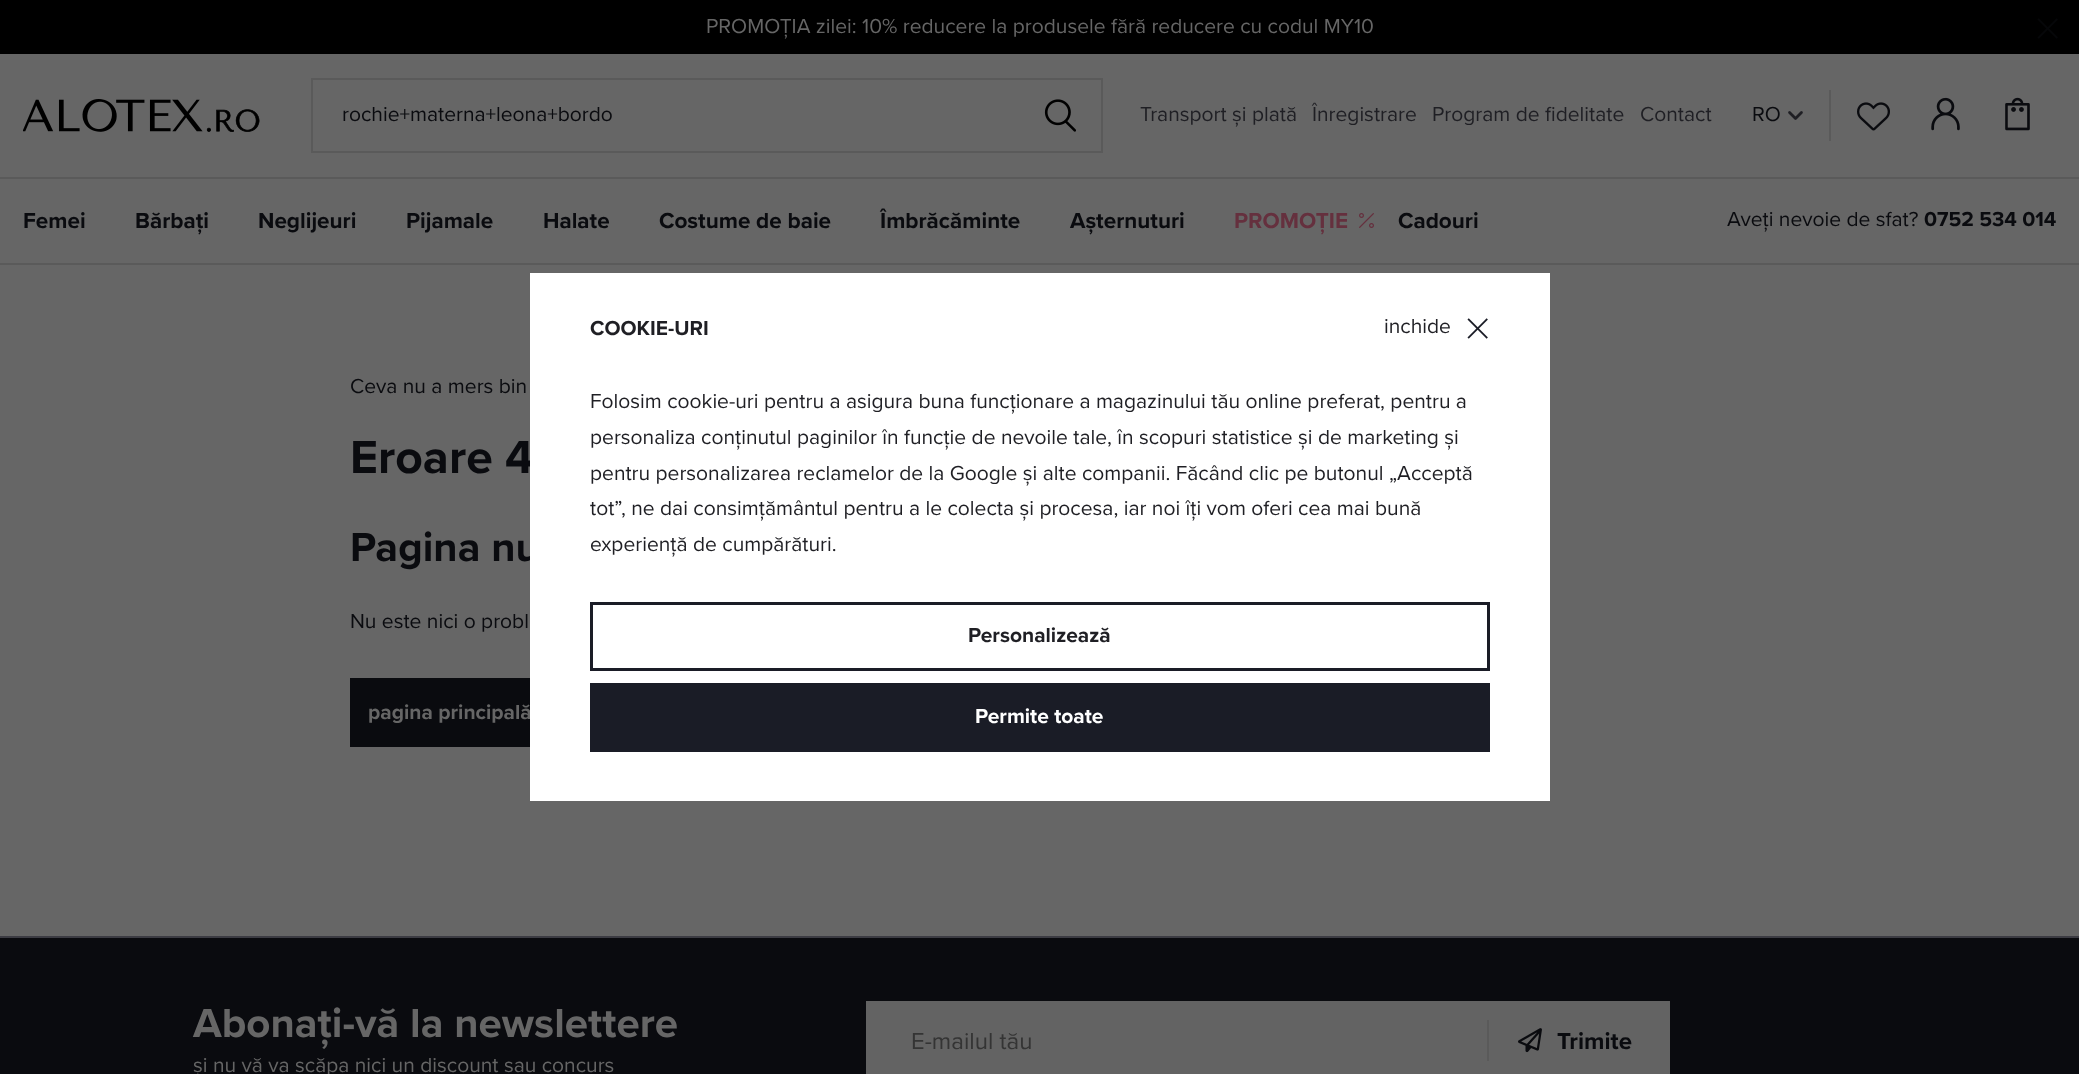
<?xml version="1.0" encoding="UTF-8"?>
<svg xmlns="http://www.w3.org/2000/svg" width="2079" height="1074">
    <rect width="100%" height="100%" fill="#666666"/>
    <rect x="0" y="0" width="2079" height="54" fill="#000000"/>
    <text x="706" y="33" font-family="Proxima Nova" font-size="21" fill="#666666">PROMOȚIA zilei: 10% reducere la produsele fără reducere cu codul MY10</text>
    <image x="2037" y="18" width="21" height="21" href="img_01.png"/>
    <rect x="0" y="177" width="2079" height="2" fill="#5A5A5A"/>
    <image x="23" y="99" width="237" height="33" href="img_02.png"/>
    <rect x="312" y="79" width="790" height="73" fill="none" stroke="#5A5A5A" stroke-width="2"/>
    <text x="342" y="121" font-family="Proxima Nova" font-size="21" fill="#0A0B0F">rochie+materna+leona+bordo</text>
    <image x="1044" y="99" width="32" height="33" href="img_03.png"/>
    <text x="1140" y="121" font-family="Proxima Nova" font-size="21" fill="#1F1F24">Transport și plată</text>
    <text x="1312" y="121" font-family="Proxima Nova" font-size="21" fill="#1F1F24">Înregistrare</text>
    <text x="1432" y="121" font-family="Proxima Nova" font-size="21" fill="#1F1F24">Program de fidelitate</text>
    <text x="1640" y="121" font-family="Proxima Nova" font-size="21" fill="#1F1F24">Contact</text>
    <rect x="1829" y="90" width="2" height="51" fill="#5A5A5A"/>
    <text x="1752" y="121" font-family="Proxima Nova" font-size="21" fill="#0A0B0F">RO</text>
    <image x="1788" y="111" width="15" height="9" href="img_04.png"/>
    <image x="1857" y="102" width="33" height="29" href="img_05.png"/>
    <image x="1931" y="97" width="29" height="34" href="img_06.png"/>
    <image x="2005" y="97" width="25" height="34" href="img_07.png"/>
    <rect x="0" y="263" width="2079" height="2" fill="#5A5A5A"/>
    <text x="23" y="228" font-family="Proxima Nova" font-size="22.5" font-weight="700" fill="#0A0B0F">Femei</text>
    <text x="135" y="228" font-family="Proxima Nova" font-size="22.5" font-weight="700" fill="#0A0B0F">Bărbați</text>
    <text x="258" y="228" font-family="Proxima Nova" font-size="22.5" font-weight="700" fill="#0A0B0F">Neglijeuri</text>
    <text x="406" y="228" font-family="Proxima Nova" font-size="22.5" font-weight="700" fill="#0A0B0F">Pijamale</text>
    <text x="543" y="228" font-family="Proxima Nova" font-size="22.5" font-weight="700" fill="#0A0B0F">Halate</text>
    <text x="659" y="228" font-family="Proxima Nova" font-size="22.5" font-weight="700" fill="#0A0B0F">Costume de baie</text>
    <text x="880" y="228" font-family="Proxima Nova" font-size="22.5" font-weight="700" fill="#0A0B0F">Îmbrăcăminte</text>
    <text x="1070" y="228" font-family="Proxima Nova" font-size="22.5" font-weight="700" fill="#0A0B0F">Așternuturi</text>
    <text x="1234" y="228" font-family="Proxima Nova" font-size="22.5" font-weight="700" fill="#65303E">PROMOȚIE</text>
    <image x="1359" y="213" width="15" height="15" href="img_08.png"/>
    <text x="1398" y="228" font-family="Proxima Nova" font-size="22.5" font-weight="700" fill="#0A0B0F">Cadouri</text>
    <text x="1727" y="226" font-family="Proxima Nova" font-size="21" fill="#0A0B0F">Aveți nevoie de sfat?</text>
    <text x="1924" y="226" font-family="Proxima Nova" font-size="21" font-weight="700" fill="#0A0B0F">0752 534 014</text>
    <text x="350" y="393" font-family="Proxima Nova" font-size="21" fill="#0A0B0F">Ceva nu a mers bin</text>
    <text x="350" y="473" font-family="Proxima Nova" font-size="48" font-weight="700" fill="#0A0B0F">Eroare 4</text>
    <text x="350" y="561" font-family="Proxima Nova" font-size="42" font-weight="700" fill="#0A0B0F">Pagina nu</text>
    <text x="350" y="628" font-family="Proxima Nova" font-size="21" fill="#0A0B0F">Nu este nici o probl</text>
    <rect x="350" y="678" width="180" height="69" fill="#0A0B0F"/>
    <text x="368" y="719" font-family="Proxima Nova" font-size="21" font-weight="700" fill="#666666">pagina principală</text>
    <rect x="530" y="273" width="1020" height="528" fill="#FFFFFF"/>
    <text x="590" y="335" font-family="Proxima Nova" font-size="21" font-weight="700" fill="#1F1F24">COOKIE-URI</text>
    <text x="1384" y="333" font-family="Proxima Nova" font-size="21" fill="#1F1F24">inchide</text>
    <image x="1467" y="318" width="21" height="21" href="img_09.png"/>
    <text font-family="Proxima Nova" font-size="21" fill="#1F1F24">
        <tspan x="590" y="408">Folosim cookie-uri pentru a asigura buna funcționare a magazinului tău online preferat, pentru a</tspan>
        <tspan x="590" y="444">personaliza conținutul paginilor în funcție de nevoile tale, în scopuri statistice și de marketing și</tspan>
        <tspan x="590" y="480">pentru personalizarea reclamelor de la Google și alte companii. Făcând clic pe butonul „Acceptă</tspan>
        <tspan x="590" y="515">tot”, ne dai consimțământul pentru a le colecta și procesa, iar noi îți vom oferi cea mai bună</tspan>
        <tspan x="590" y="551">experiență de cumpărături.</tspan>
    </text>
    <rect x="591.5" y="603.5" width="897" height="66" fill="none" stroke="#1A1C26" stroke-width="3"/>
    <text x="968" y="642" font-family="Proxima Nova" font-size="21" font-weight="700" fill="#1F1F24">Personalizează</text>
    <rect x="590" y="683" width="900" height="69" fill="#1A1C26"/>
    <text x="975" y="723" font-family="Proxima Nova" font-size="21" font-weight="700" fill="#FFFFFF">Permite toate</text>
    <rect x="0" y="938" width="2079" height="136" fill="#0A0B0F"/>
    <rect x="0" y="936" width="2079" height="2" fill="#3C3C43"/>
    <text x="193" y="1037" font-family="Proxima Nova" font-size="42" font-weight="700" fill="#666666">Abonați-vă la newslettere</text>
    <text x="193" y="1072" font-family="Proxima Nova" font-size="21" fill="#666666">și nu vă va scăpa nici un discount sau concurs</text>
    <rect x="866" y="1001" width="804" height="73" fill="#636363"/>
    <text x="911" y="1049" font-family="Proxima Nova" font-size="24" fill="#343434">E-mailul tău</text>
    <rect x="1487" y="1020" width="2" height="41" fill="#5A5A5A"/>
    <image x="1518" y="1028" width="24" height="25" href="img_10.png"/>
    <text x="1557" y="1049" font-family="Proxima Nova" font-size="24" font-weight="700" fill="#0A0B0F">Trimite</text>
</svg>
